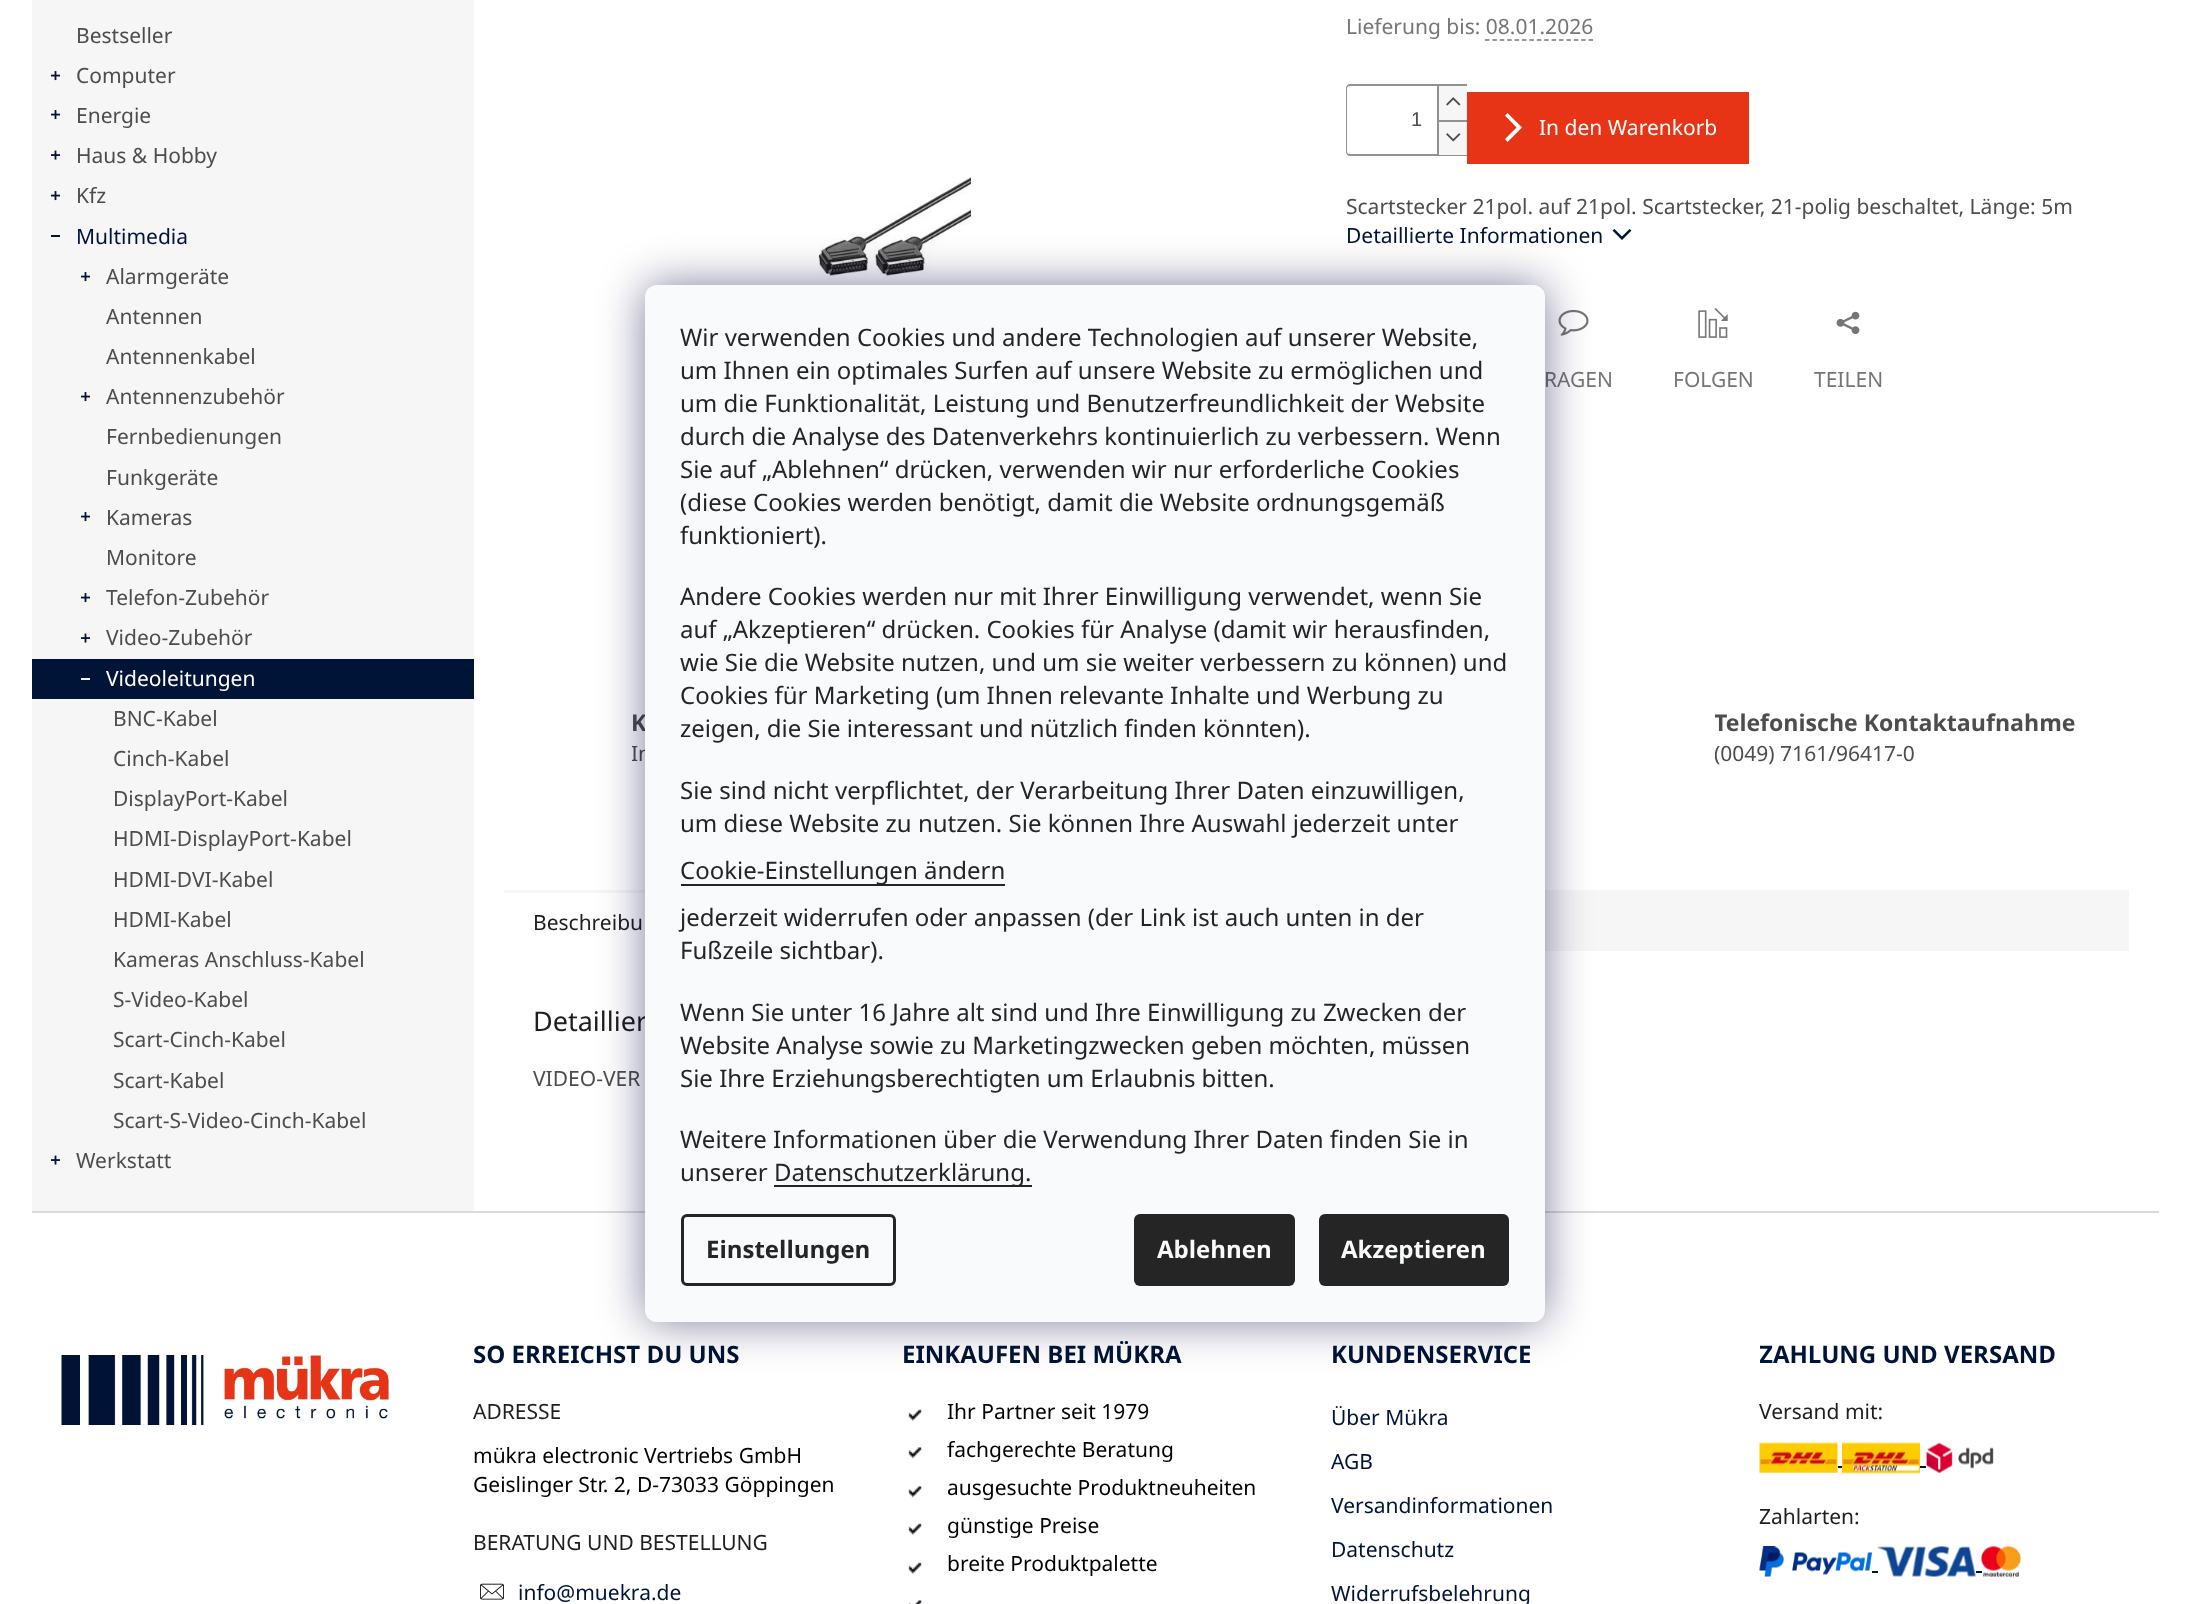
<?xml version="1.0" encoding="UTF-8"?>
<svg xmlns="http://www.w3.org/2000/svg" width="2210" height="1604">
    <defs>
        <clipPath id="clip1"><rect x="632" y="707" width="250" height="61"/></clipPath>
        <clipPath id="clip2"><rect x="1715" y="707" width="375" height="61"/></clipPath>
        <clipPath id="clip3"><rect x="1760" y="1341" width="369" height="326"/></clipPath>
        <filter id="blur1" x="-50%" y="-200%" width="200%" height="500%"><feGaussianBlur stdDeviation="22.5"/></filter>
    </defs>
    <rect width="100%" height="100%" fill="#FFFFFF"/>
    <rect x="32" y="0" width="442" height="1211" fill="#F6F6F6"/>
    <text x="76" y="43" font-family="Noto Sans" font-size="21" fill="#4D4D4D">Bestseller</text>
    <image x="51" y="71" width="9" height="10" href="img_01.png"/>
    <text x="76" y="83" font-family="Noto Sans" font-size="21" fill="#4D4D4D">Computer</text>
    <image x="51" y="110" width="9" height="10" href="img_01.png"/>
    <text x="76" y="123" font-family="Noto Sans" font-size="21" fill="#4D4D4D">Energie</text>
    <image x="51" y="150" width="9" height="10" href="img_02.png"/>
    <text x="76" y="163" font-family="Noto Sans" font-size="21" fill="#4D4D4D">Haus &amp; Hobby</text>
    <image x="51" y="191" width="9" height="10" href="img_01.png"/>
    <text x="76" y="203" font-family="Noto Sans" font-size="21" fill="#4D4D4D">Kfz</text>
    <rect x="51" y="235" width="9" height="2" fill="#001437"/>
    <text x="76" y="244" font-family="Noto Sans" font-size="21" fill="#001437">Multimedia</text>
    <image x="81" y="272" width="9" height="10" href="img_01.png"/>
    <text font-family="Noto Sans" font-size="21" fill="#4D4D4D">
        <tspan x="106" y="284">Alarmgeräte</tspan>
        <tspan x="106" y="324">Antennen</tspan>
        <tspan x="106" y="364">Antennenkabel</tspan>
    </text>
    <image x="81" y="392" width="9" height="10" href="img_01.png"/>
    <text font-family="Noto Sans" font-size="21" fill="#4D4D4D">
        <tspan x="106" y="404">Antennenzubehör</tspan>
        <tspan x="106" y="444">Fernbedienungen</tspan>
        <tspan x="106" y="485">Funkgeräte</tspan>
    </text>
    <image x="81" y="512" width="9" height="10" href="img_01.png"/>
    <text font-family="Noto Sans" font-size="21" fill="#4D4D4D">
        <tspan x="106" y="525">Kameras</tspan>
        <tspan x="106" y="565">Monitore</tspan>
    </text>
    <image x="81" y="593" width="9" height="10" href="img_01.png"/>
    <text x="106" y="605" font-family="Noto Sans" font-size="21" fill="#4D4D4D">Telefon-Zubehör</text>
    <image x="81" y="633" width="9" height="10" href="img_02.png"/>
    <text x="106" y="645" font-family="Noto Sans" font-size="21" fill="#4D4D4D">Video-Zubehör</text>
    <rect x="32" y="659" width="442" height="40" fill="#001437"/>
    <rect x="81" y="678" width="9" height="2" fill="#FFFFFF"/>
    <text x="106" y="686" font-family="Noto Sans" font-size="21" fill="#FFFFFF">Videoleitungen</text>
    <text font-family="Noto Sans" font-size="21" fill="#4D4D4D">
        <tspan x="113" y="726">BNC-Kabel</tspan>
        <tspan x="113" y="766">Cinch-Kabel</tspan>
        <tspan x="113" y="806">DisplayPort-Kabel</tspan>
        <tspan x="113" y="846">HDMI-DisplayPort-Kabel</tspan>
        <tspan x="113" y="887">HDMI-DVI-Kabel</tspan>
        <tspan x="113" y="927">HDMI-Kabel</tspan>
        <tspan x="113" y="967">Kameras Anschluss-Kabel</tspan>
        <tspan x="113" y="1007">S-Video-Kabel</tspan>
        <tspan x="113" y="1047">Scart-Cinch-Kabel</tspan>
        <tspan x="113" y="1088">Scart-Kabel</tspan>
        <tspan x="113" y="1128">Scart-S-Video-Cinch-Kabel</tspan>
    </text>
    <image x="51" y="1155" width="9" height="10" href="img_02.png"/>
    <text x="76" y="1168" font-family="Noto Sans" font-size="21" fill="#4D4D4D">Werkstatt</text>
    <image x="818" y="177" width="156" height="103" href="img_03.png"/>
    <text x="1346" y="34" font-family="Noto Sans" font-size="21" fill="#767676">Lieferung bis: 08.01.2026</text>
    <path d="M 1485 40 H 1593" fill="none" stroke="#767676" stroke-width="1.5" stroke-dasharray="4.5 2.9"/>
    <path d="M 1350 84 H 1467 V 156 H 1350 C 1348 156 1346 154 1346 152 V 88 C 1346 86 1348 84 1350 84 Z M 1350 86 H 1467 V 154 H 1350 C 1348 154 1347 153 1347 152 V 88 C 1347 87 1348 86 1350 86 Z" fill="#919191" fill-rule="evenodd"/>
    <text x="1411" y="126" font-family="Liberation Sans" font-size="20" fill="#4D4D4D">1</text>
    <rect x="1439" y="86" width="28" height="34" fill="#F6F6F6"/>
    <rect x="1437" y="86" width="2" height="34" fill="#919191"/>
    <image x="1446" y="97" width="15" height="9" href="img_04.png"/>
    <rect x="1439" y="122" width="28" height="33" fill="#F6F6F6"/>
    <rect x="1437" y="120" width="30" height="2" fill="#919191"/>
    <rect x="1437" y="120" width="2" height="35" fill="#919191"/>
    <image x="1446" y="133" width="15" height="9" href="img_05.png"/>
    <rect x="1467" y="92" width="282" height="72" fill="#E73416"/>
    <path d="M 1507.5 142 L 1505 139 L 1516.5 127.5 L 1505 115.5 L 1507.5 113 L 1522 127.5 Z" fill="#FFFFFF"/>
    <text x="1539" y="135" font-family="Noto Sans" font-size="21" fill="#FFFFFF">In den Warenkorb</text>
    <text x="1346" y="214" font-family="Noto Sans" font-size="21" fill="#4D4D4D">Scartstecker 21pol. auf 21pol. Scartstecker, 21-polig beschaltet, Länge: 5m</text>
    <text x="1346" y="243" font-family="Noto Sans" font-size="21" fill="#001437">Detaillierte Informationen</text>
    <path d="M 1612.5 230.5 L 1614.5 229 L 1622 236.5 L 1629.5 229 L 1631.5 230.5 L 1622 240 Z" fill="#001437"/>
    <image x="1558" y="309" width="31" height="27" href="img_06.png"/>
    <text x="1544" y="387" font-family="Noto Sans" font-size="21" fill="#767676">RAGEN</text>
    <image x="1698" y="308" width="30" height="30" href="img_07.png"/>
    <text x="1673" y="387" font-family="Noto Sans" font-size="21" fill="#767676">FOLGEN</text>
    <image x="1836" y="311" width="24" height="24" href="img_08.png"/>
    <text x="1814" y="387" font-family="Noto Sans" font-size="21" fill="#767676">TEILEN</text>
    <text x="631" y="731" font-family="Noto Sans" font-size="23.1" font-weight="700" fill="#4D4D4D">K</text>
    <g clip-path="url(#clip1)">
        <text x="631" y="761" font-family="Noto Sans" font-size="21" fill="#4D4D4D">In</text>
    </g>
    <g clip-path="url(#clip2)">
        <text x="1714" y="731" font-family="Noto Sans" font-size="23.1" font-weight="700" fill="#4D4D4D">Telefonische Kontaktaufnahme</text>
        <text x="1714" y="761" font-family="Noto Sans" font-size="21" fill="#4D4D4D">(0049) 7161/96417-0</text>
    </g>
    <rect x="1545" y="890" width="584" height="61" fill="#F6F6F6"/>
    <rect x="504" y="890" width="141" height="3" fill="#F6F6F6"/>
    <text x="533" y="930" font-family="Noto Sans" font-size="21" fill="#1F1F1F">Beschreibu</text>
    <text x="533" y="1031" font-family="Noto Sans" font-size="27" fill="#1F1F1F">Detaillier</text>
    <text x="533" y="1086" font-family="Noto Sans" font-size="21" fill="#4D4D4D">VIDEO-VER</text>
    <image x="61" y="1354" width="329" height="71" href="img_09.png"/>
    <rect x="32" y="1211" width="2127" height="2" fill="#DADADA"/>
    <text x="473" y="1363" font-family="Noto Sans" font-size="24" font-weight="700" fill="#001437">SO ERREICHST DU UNS</text>
    <text x="473" y="1419" font-family="Noto Sans" font-size="21" fill="#1F1F1F">ADRESSE</text>
    <text font-family="Noto Sans" font-size="21" fill="#000000">
        <tspan x="473" y="1463">mükra electronic Vertriebs GmbH</tspan>
        <tspan x="473" y="1492">Geislinger Str. 2, D-73033 Göppingen</tspan>
    </text>
    <text x="473" y="1550" font-family="Noto Sans" font-size="21" fill="#1F1F1F">BERATUNG UND BESTELLUNG</text>
    <image x="480" y="1583" width="24" height="17" href="img_10.png"/>
    <text x="518" y="1600" font-family="Noto Sans" font-size="21" fill="#001437">info@muekra.de</text>
    <text x="902" y="1363" font-family="Noto Sans" font-size="24" font-weight="700" fill="#001437">EINKAUFEN BEI MÜKRA</text>
    <image x="908" y="1409" width="14" height="12" href="img_11.png"/>
    <text x="947" y="1419" font-family="Noto Sans" font-size="21" fill="#000000">Ihr Partner seit 1979</text>
    <image x="908" y="1447" width="14" height="12" href="img_12.png"/>
    <text x="947" y="1457" font-family="Noto Sans" font-size="21" fill="#000000">fachgerechte Beratung</text>
    <image x="908" y="1486" width="14" height="12" href="img_12.png"/>
    <text x="947" y="1495" font-family="Noto Sans" font-size="21" fill="#000000">ausgesuchte Produktneuheiten</text>
    <image x="908" y="1523" width="14" height="12" href="img_11.png"/>
    <text x="947" y="1533" font-family="Noto Sans" font-size="21" fill="#000000">günstige Preise</text>
    <image x="908" y="1562" width="14" height="12" href="img_11.png"/>
    <text x="947" y="1571" font-family="Noto Sans" font-size="21" fill="#000000">breite Produktpalette</text>
    <image x="908" y="1600" width="14" height="4" href="img_13.png"/>
    <text x="1331" y="1363" font-family="Noto Sans" font-size="24" font-weight="700" fill="#001437">KUNDENSERVICE</text>
    <text x="1331" y="1425" font-family="Noto Sans" font-size="21" fill="#001437">Über Mükra</text>
    <text x="1331" y="1469" font-family="Noto Sans" font-size="21" fill="#001437">AGB</text>
    <text x="1331" y="1513" font-family="Noto Sans" font-size="21" fill="#001437">Versandinformationen</text>
    <text x="1331" y="1557" font-family="Noto Sans" font-size="21" fill="#001437">Datenschutz</text>
    <text x="1331" y="1601" font-family="Noto Sans" font-size="21" fill="#001437">Widerrufsbelehrung</text>
    <g clip-path="url(#clip3)">
        <text x="1759" y="1363" font-family="Noto Sans" font-size="24" font-weight="700" fill="#001437">ZAHLUNG UND VERSAND</text>
    </g>
    <text x="1759" y="1419" font-family="Noto Sans" font-size="21" fill="#1F1F1F">Versand mit:</text>
    <image x="1759" y="1442" width="79" height="31" href="img_14.png"/>
    <rect x="1838" y="1466" width="5" height="2" fill="#001437"/>
    <image x="1842" y="1442" width="78" height="32" href="img_15.png"/>
    <rect x="1920" y="1466" width="6" height="2" fill="#001437"/>
    <image x="1926" y="1442" width="68" height="32" href="img_16.png"/>
    <text x="1759" y="1524" font-family="Noto Sans" font-size="21" fill="#1F1F1F">Zahlarten:</text>
    <image x="1759" y="1546" width="113" height="31" href="img_17.png"/>
    <rect x="1872" y="1571" width="6" height="2" fill="#001437"/>
    <image x="1877" y="1546" width="99" height="31" href="img_18.png"/>
    <rect x="1976" y="1571" width="6" height="2" fill="#001437"/>
    <image x="1981" y="1546" width="40" height="31" href="img_19.png"/>
    <rect x="645" y="285" width="900" height="1037" rx="12" fill="#1B1939" fill-opacity="0.5" filter="url(#blur1)"/>
    <rect x="645" y="285" width="900" height="1037" rx="12" fill="#F8FAFB"/>
    <text font-family="Noto Sans" font-size="24" fill="#252525">
        <tspan x="680" y="346">Wir verwenden Cookies und andere Technologien auf unserer Website,</tspan>
        <tspan x="680" y="379">um Ihnen ein optimales Surfen auf unsere Website zu ermöglichen und</tspan>
        <tspan x="680" y="412">um die Funktionalität, Leistung und Benutzerfreundlichkeit der Website</tspan>
        <tspan x="680" y="445">durch die Analyse des Datenverkehrs kontinuierlich zu verbessern. Wenn</tspan>
        <tspan x="680" y="478">Sie auf „Ablehnen“ drücken, verwenden wir nur erforderliche Cookies</tspan>
        <tspan x="680" y="511">(diese Cookies werden benötigt, damit die Website ordnungsgemäß</tspan>
        <tspan x="680" y="544">funktioniert).</tspan>
    </text>
    <text font-family="Noto Sans" font-size="24" fill="#252525">
        <tspan x="680" y="605">Andere Cookies werden nur mit Ihrer Einwilligung verwendet, wenn Sie</tspan>
        <tspan x="680" y="638">auf „Akzeptieren“ drücken. Cookies für Analyse (damit wir herausfinden,</tspan>
        <tspan x="680" y="671">wie Sie die Website nutzen, und um sie weiter verbessern zu können) und</tspan>
        <tspan x="680" y="704">Cookies für Marketing (um Ihnen relevante Inhalte und Werbung zu</tspan>
        <tspan x="680" y="737">zeigen, die Sie interessant und nützlich finden könnten).</tspan>
    </text>
    <text font-family="Noto Sans" font-size="24" fill="#252525">
        <tspan x="680" y="799">Sie sind nicht verpflichtet, der Verarbeitung Ihrer Daten einzuwilligen,</tspan>
        <tspan x="680" y="832">um diese Website zu nutzen. Sie können Ihre Auswahl jederzeit unter</tspan>
    </text>
    <rect x="681" y="884" width="324" height="2" fill="#252525"/>
    <text font-family="Noto Sans" font-size="24" fill="#252525">
        <tspan x="680" y="879">Cookie-Einstellungen ändern</tspan>
        <tspan x="680" y="926">jederzeit widerrufen oder anpassen (der Link ist auch unten in der</tspan>
        <tspan x="680" y="959">Fußzeile sichtbar).</tspan>
    </text>
    <text font-family="Noto Sans" font-size="24" fill="#252525">
        <tspan x="680" y="1021">Wenn Sie unter 16 Jahre alt sind und Ihre Einwilligung zu Zwecken der</tspan>
        <tspan x="680" y="1054">Website Analyse sowie zu Marketingzwecken geben möchten, müssen</tspan>
        <tspan x="680" y="1087">Sie Ihre Erziehungsberechtigten um Erlaubnis bitten.</tspan>
    </text>
    <text font-family="Noto Sans" font-size="24" fill="#252525">
        <tspan x="680" y="1148">Weitere Informationen über die Verwendung Ihrer Daten finden Sie in</tspan>
        <tspan x="680" y="1181">unserer</tspan>
    </text>
    <rect x="774" y="1185" width="258" height="2" fill="#252525"/>
    <text x="774" y="1181" font-family="Noto Sans" font-size="24" fill="#252525">Datenschutzerklärung.</text>
    <rect x="682.5" y="1215.5" width="212" height="69" rx="4.5" fill="none" stroke="#252525" stroke-width="3"/>
    <text x="706" y="1258" font-family="Noto Sans" font-size="24" font-weight="700" fill="#252525">Einstellungen</text>
    <rect x="1134" y="1214" width="161" height="72" rx="6" fill="#252525"/>
    <text x="1157" y="1258" font-family="Noto Sans" font-size="24" font-weight="700" fill="#F8FAFB">Ablehnen</text>
    <rect x="1319" y="1214" width="190" height="72" rx="6" fill="#252525"/>
    <text x="1341" y="1258" font-family="Noto Sans" font-size="24" font-weight="700" fill="#F8FAFB">Akzeptieren</text>
</svg>
